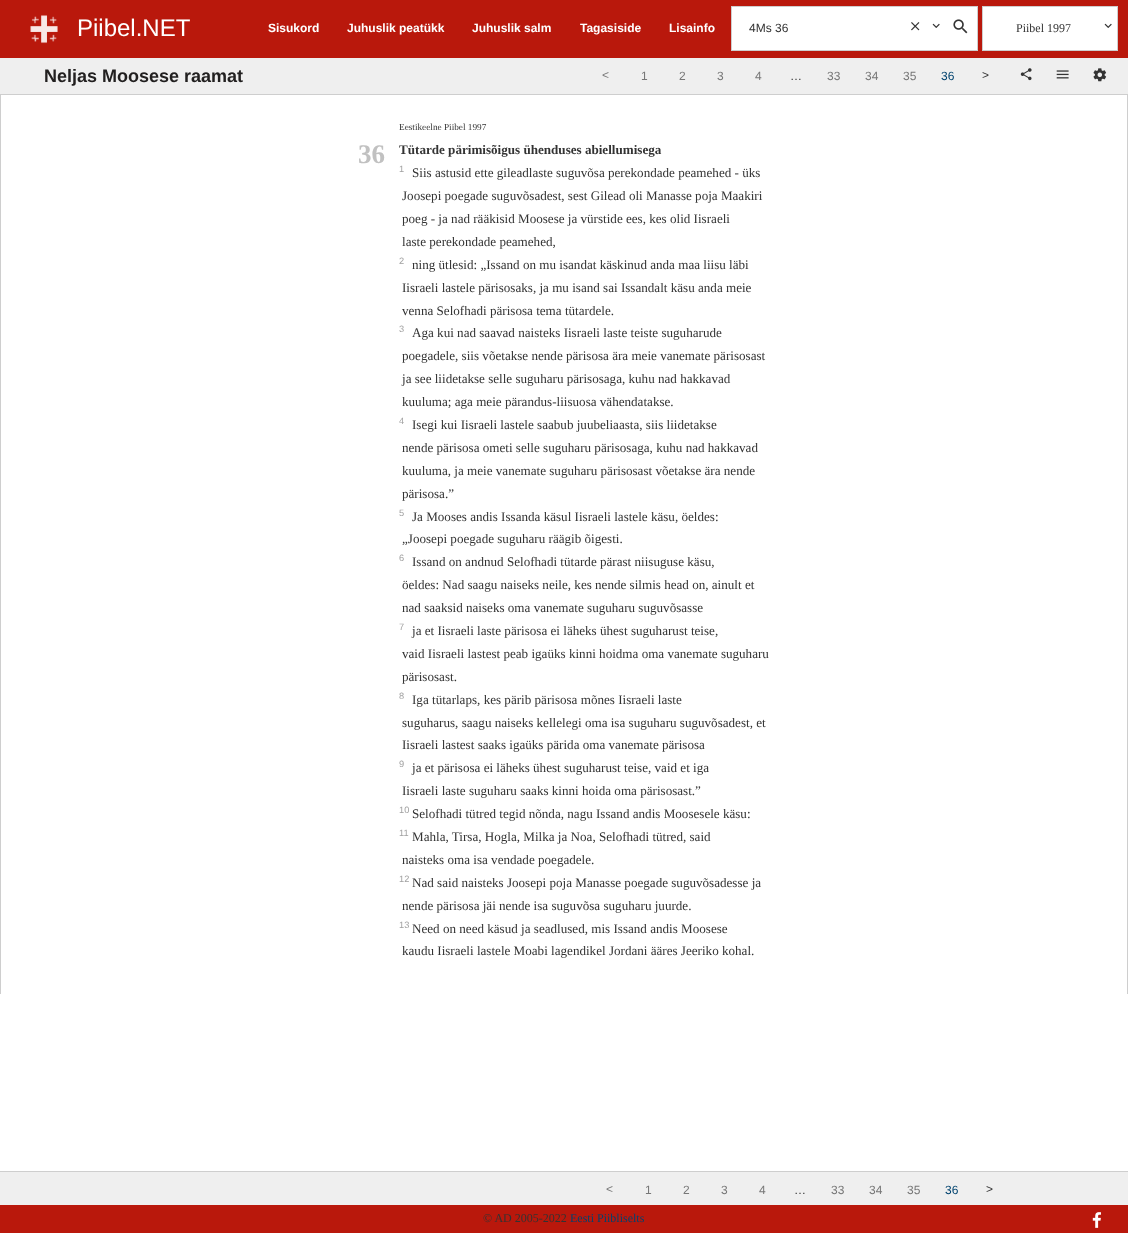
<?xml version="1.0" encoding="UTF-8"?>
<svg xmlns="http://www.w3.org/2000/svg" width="1128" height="1233">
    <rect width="100%" height="100%" fill="#FFFFFF"/>
    <rect x="0" y="0" width="1128" height="58" fill="#B9180C"/>
    <image x="30" y="15" width="28" height="29" href="img_01.png"/>
    <text x="77" y="36" font-family="Liberation Sans" font-size="24" fill="#FFFFFF">Piibel.NET</text>
    <text x="268" y="32" font-family="Liberation Sans" font-size="12" font-weight="700" fill="#FFFFFF">Sisukord</text>
    <text x="347" y="32" font-family="Liberation Sans" font-size="12" font-weight="700" fill="#FFFFFF">Juhuslik peatükk</text>
    <text x="472" y="32" font-family="Liberation Sans" font-size="12" font-weight="700" fill="#FFFFFF">Juhuslik salm</text>
    <text x="580" y="32" font-family="Liberation Sans" font-size="12" font-weight="700" fill="#FFFFFF">Tagasiside</text>
    <text x="669" y="32" font-family="Liberation Sans" font-size="12" font-weight="700" fill="#FFFFFF">Lisainfo</text>
    <rect x="731.5" y="6.5" width="246" height="44" fill="#FFFFFF" stroke="#CECECE"/>
    <text x="749" y="32" font-family="Liberation Sans" font-size="12" fill="#333333">4Ms 36</text>
    <image x="911" y="22" width="9" height="9" href="img_02.png"/>
    <image x="932" y="23" width="8" height="5" href="img_03.png"/>
    <image x="953" y="19" width="15" height="15" href="img_04.png"/>
    <rect x="982.5" y="6.5" width="135" height="44" fill="#FFFFFF" stroke="#CECECE"/>
    <text x="1016" y="32" font-family="Liberation Serif" font-size="12" fill="#333333">Piibel 1997</text>
    <image x="1104" y="23" width="8" height="5" href="img_03.png"/>
    <rect x="0" y="58" width="1128" height="36" fill="#EFEFEF"/>
    <rect x="0" y="94" width="1128" height="1" fill="#CECECE"/>
    <text x="44" y="82" font-family="Liberation Sans" font-size="18" font-weight="700" fill="#222020">Neljas Moosese raamat</text>
    <text x="602" y="79" font-family="Liberation Sans" font-size="12" fill="#777777">&lt;</text>
    <text x="641" y="80" font-family="Liberation Sans" font-size="12" fill="#777777">1</text>
    <text x="679" y="80" font-family="Liberation Sans" font-size="12" fill="#777777">2</text>
    <text x="717" y="80" font-family="Liberation Sans" font-size="12" fill="#777777">3</text>
    <text x="755" y="80" font-family="Liberation Sans" font-size="12" fill="#777777">4</text>
    <text x="790" y="80" font-family="Liberation Sans" font-size="12" fill="#333333">…</text>
    <text x="827" y="80" font-family="Liberation Sans" font-size="12" fill="#777777">33</text>
    <text x="865" y="80" font-family="Liberation Sans" font-size="12" fill="#777777">34</text>
    <text x="903" y="80" font-family="Liberation Sans" font-size="12" fill="#777777">35</text>
    <text x="941" y="80" font-family="Liberation Sans" font-size="12" fill="#01436F">36</text>
    <text x="982" y="79" font-family="Liberation Sans" font-size="12" fill="#333333">&gt;</text>
    <image x="1020" y="68" width="12" height="13" href="img_05.png"/>
    <image x="1056" y="70" width="13" height="9" href="img_06.png"/>
    <image x="1093" y="68" width="14" height="14" href="img_07.png"/>
    <rect x="1127" y="95" width="1" height="899" fill="#CECECE"/>
    <rect x="0" y="95" width="1" height="899" fill="#CECECE"/>
    <text x="399" y="130" font-family="Liberation Serif" font-size="9.25" fill="#333333">Eestikeelne Piibel 1997</text>
    <text x="358" y="163" font-family="Liberation Serif" font-size="27" font-weight="700" fill="#C1C1C1">36</text>
    <text x="399" y="154" font-family="Liberation Serif" font-size="13.1" font-weight="700" fill="#333333">Tütarde pärimisõigus ühenduses abiellumisega</text>
    <text x="399" y="172" font-family="Liberation Sans" font-size="9.25" fill="#A0A0A0">1</text>
    <text x="412" y="177" font-family="Liberation Serif" font-size="13.1" fill="#333333">Siis astusid ette gileadlaste suguvõsa perekondade peamehed - üks</text>
    <text font-family="Liberation Serif" font-size="13.1" fill="#333333">
        <tspan x="402" y="200">Joosepi poegade suguvõsadest, sest Gilead oli Manasse poja Maakiri</tspan>
        <tspan x="402" y="223">poeg - ja nad rääkisid Moosese ja vürstide ees, kes olid Iisraeli</tspan>
        <tspan x="402" y="246">laste perekondade peamehed,</tspan>
    </text>
    <text x="399" y="264" font-family="Liberation Sans" font-size="9.25" fill="#A0A0A0">2</text>
    <text x="412" y="269" font-family="Liberation Serif" font-size="13.1" fill="#333333">ning ütlesid: „Issand on mu isandat käskinud anda maa liisu läbi</text>
    <text font-family="Liberation Serif" font-size="13.1" fill="#333333">
        <tspan x="402" y="292">Iisraeli lastele pärisosaks, ja mu isand sai Issandalt käsu anda meie</tspan>
        <tspan x="402" y="315">venna Selofhadi pärisosa tema tütardele.</tspan>
    </text>
    <text x="399" y="332" font-family="Liberation Sans" font-size="9.25" fill="#A0A0A0">3</text>
    <text x="412" y="337" font-family="Liberation Serif" font-size="13.1" fill="#333333">Aga kui nad saavad naisteks Iisraeli laste teiste suguharude</text>
    <text font-family="Liberation Serif" font-size="13.1" fill="#333333">
        <tspan x="402" y="360">poegadele, siis võetakse nende pärisosa ära meie vanemate pärisosast</tspan>
        <tspan x="402" y="383">ja see liidetakse selle suguharu pärisosaga, kuhu nad hakkavad</tspan>
        <tspan x="402" y="406">kuuluma; aga meie pärandus-liisuosa vähendatakse.</tspan>
    </text>
    <text x="399" y="424" font-family="Liberation Sans" font-size="9.25" fill="#A0A0A0">4</text>
    <text x="412" y="429" font-family="Liberation Serif" font-size="13.1" fill="#333333">Isegi kui Iisraeli lastele saabub juubeliaasta, siis liidetakse</text>
    <text font-family="Liberation Serif" font-size="13.1" fill="#333333">
        <tspan x="402" y="452">nende pärisosa ometi selle suguharu pärisosaga, kuhu nad hakkavad</tspan>
        <tspan x="402" y="475">kuuluma, ja meie vanemate suguharu pärisosast võetakse ära nende</tspan>
        <tspan x="402" y="498">pärisosa.”</tspan>
    </text>
    <text x="399" y="516" font-family="Liberation Sans" font-size="9.25" fill="#A0A0A0">5</text>
    <text x="412" y="521" font-family="Liberation Serif" font-size="13.1" fill="#333333">Ja Mooses andis Issanda käsul Iisraeli lastele käsu, öeldes:</text>
    <text x="402" y="543" font-family="Liberation Serif" font-size="13.1" fill="#333333">„Joosepi poegade suguharu räägib õigesti.</text>
    <text x="399" y="561" font-family="Liberation Sans" font-size="9.25" fill="#A0A0A0">6</text>
    <text x="412" y="566" font-family="Liberation Serif" font-size="13.1" fill="#333333">Issand on andnud Selofhadi tütarde pärast niisuguse käsu,</text>
    <text font-family="Liberation Serif" font-size="13.1" fill="#333333">
        <tspan x="402" y="589">öeldes: Nad saagu naiseks neile, kes nende silmis head on, ainult et</tspan>
        <tspan x="402" y="612">nad saaksid naiseks oma vanemate suguharu suguvõsasse</tspan>
    </text>
    <text x="399" y="630" font-family="Liberation Sans" font-size="9.25" fill="#A0A0A0">7</text>
    <text x="412" y="635" font-family="Liberation Serif" font-size="13.1" fill="#333333">ja et Iisraeli laste pärisosa ei läheks ühest suguharust teise,</text>
    <text font-family="Liberation Serif" font-size="13.1" fill="#333333">
        <tspan x="402" y="658">vaid Iisraeli lastest peab igaüks kinni hoidma oma vanemate suguharu</tspan>
        <tspan x="402" y="681">pärisosast.</tspan>
    </text>
    <text x="399" y="699" font-family="Liberation Sans" font-size="9.25" fill="#A0A0A0">8</text>
    <text x="412" y="704" font-family="Liberation Serif" font-size="13.1" fill="#333333">Iga tütarlaps, kes pärib pärisosa mõnes Iisraeli laste</text>
    <text font-family="Liberation Serif" font-size="13.1" fill="#333333">
        <tspan x="402" y="727">suguharus, saagu naiseks kellelegi oma isa suguharu suguvõsadest, et</tspan>
        <tspan x="402" y="749">Iisraeli lastest saaks igaüks pärida oma vanemate pärisosa</tspan>
    </text>
    <text x="399" y="767" font-family="Liberation Sans" font-size="9.25" fill="#A0A0A0">9</text>
    <text x="412" y="772" font-family="Liberation Serif" font-size="13.1" fill="#333333">ja et pärisosa ei läheks ühest suguharust teise, vaid et iga</text>
    <text x="402" y="795" font-family="Liberation Serif" font-size="13.1" fill="#333333">Iisraeli laste suguharu saaks kinni hoida oma pärisosast.”</text>
    <text x="399" y="813" font-family="Liberation Sans" font-size="9.25" fill="#A0A0A0">10</text>
    <text x="412" y="818" font-family="Liberation Serif" font-size="13.1" fill="#333333">Selofhadi tütred tegid nõnda, nagu Issand andis Moosesele käsu:</text>
    <text x="399" y="836" font-family="Liberation Sans" font-size="9.25" fill="#A0A0A0">11</text>
    <text x="412" y="841" font-family="Liberation Serif" font-size="13.1" fill="#333333">Mahla, Tirsa, Hogla, Milka ja Noa, Selofhadi tütred, said</text>
    <text x="402" y="864" font-family="Liberation Serif" font-size="13.1" fill="#333333">naisteks oma isa vendade poegadele.</text>
    <text x="399" y="882" font-family="Liberation Sans" font-size="9.25" fill="#A0A0A0">12</text>
    <text x="412" y="887" font-family="Liberation Serif" font-size="13.1" fill="#333333">Nad said naisteks Joosepi poja Manasse poegade suguvõsadesse ja</text>
    <text x="402" y="910" font-family="Liberation Serif" font-size="13.1" fill="#333333">nende pärisosa jäi nende isa suguvõsa suguharu juurde.</text>
    <text x="399" y="928" font-family="Liberation Sans" font-size="9.25" fill="#A0A0A0">13</text>
    <text x="412" y="933" font-family="Liberation Serif" font-size="13.1" fill="#333333">Need on need käsud ja seadlused, mis Issand andis Moosese</text>
    <text x="402" y="955" font-family="Liberation Serif" font-size="13.1" fill="#333333">kaudu Iisraeli lastele Moabi lagendikel Jordani ääres Jeeriko kohal.</text>
    <rect x="0" y="1172" width="1128" height="33" fill="#EFEFEF"/>
    <rect x="0" y="1171" width="1128" height="1" fill="#CECECE"/>
    <text x="606" y="1193" font-family="Liberation Sans" font-size="12" fill="#777777">&lt;</text>
    <text x="645" y="1194" font-family="Liberation Sans" font-size="12" fill="#777777">1</text>
    <text x="683" y="1194" font-family="Liberation Sans" font-size="12" fill="#777777">2</text>
    <text x="721" y="1194" font-family="Liberation Sans" font-size="12" fill="#777777">3</text>
    <text x="759" y="1194" font-family="Liberation Sans" font-size="12" fill="#777777">4</text>
    <text x="794" y="1194" font-family="Liberation Sans" font-size="12" fill="#333333">…</text>
    <text x="831" y="1194" font-family="Liberation Sans" font-size="12" fill="#777777">33</text>
    <text x="869" y="1194" font-family="Liberation Sans" font-size="12" fill="#777777">34</text>
    <text x="907" y="1194" font-family="Liberation Sans" font-size="12" fill="#777777">35</text>
    <text x="945" y="1194" font-family="Liberation Sans" font-size="12" fill="#01436F">36</text>
    <text x="986" y="1193" font-family="Liberation Sans" font-size="12" fill="#333333">&gt;</text>
    <rect x="0" y="1205" width="1128" height="28" fill="#B9180C"/>
    <text x="483" y="1222" font-family="Liberation Serif" font-size="12" fill="#333333">© AD 2005-2022</text>
    <text x="570" y="1222" font-family="Liberation Serif" font-size="12" fill="#01436F">Eesti Piibliselts</text>
    <image x="1092" y="1212" width="9" height="16" href="img_08.png"/>
</svg>
